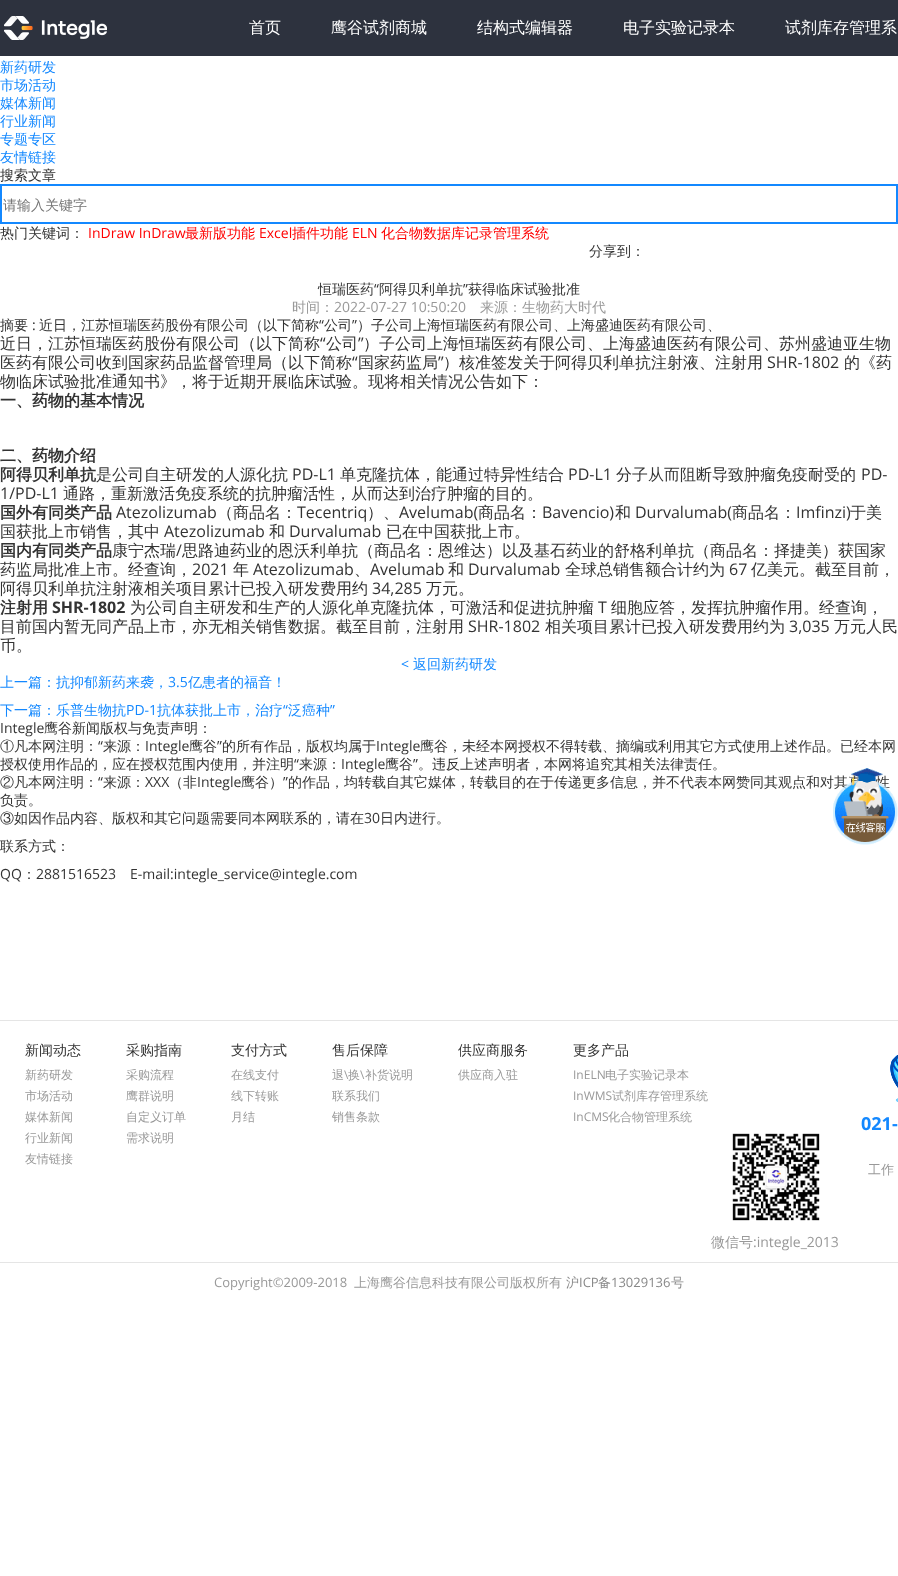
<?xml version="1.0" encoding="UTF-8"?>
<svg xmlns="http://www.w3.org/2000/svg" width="898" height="1576">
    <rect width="100%" height="100%" fill="#FFFFFF"/>
    <rect x="0" y="0" width="898" height="56" fill="#2D323E"/>
    <image x="4" y="16" width="103" height="24" href="img_01.png"/>
    <text x="249" y="33" font-family="WenQuanYi Zen Hei" font-size="16" font-weight="500" fill="#FFFFFF">首页</text>
    <text x="331" y="33" font-family="WenQuanYi Zen Hei" font-size="16" font-weight="500" fill="#FFFFFF">鹰谷试剂商城</text>
    <text x="477" y="33" font-family="WenQuanYi Zen Hei" font-size="16" font-weight="500" fill="#FFFFFF">结构式编辑器</text>
    <text x="623" y="33" font-family="WenQuanYi Zen Hei" font-size="16" font-weight="500" fill="#FFFFFF">电子实验记录本</text>
    <text x="785" y="33" font-family="WenQuanYi Zen Hei" font-size="16" font-weight="500" fill="#FFFFFF">试剂库存管理系</text>
    <text font-family="WenQuanYi Zen Hei" font-size="14" font-weight="500" fill="#1388FF">
        <tspan x="0" y="72">新药研发</tspan>
        <tspan x="0" y="90">市场活动</tspan>
        <tspan x="0" y="108">媒体新闻</tspan>
        <tspan x="0" y="126">行业新闻</tspan>
        <tspan x="0" y="144">专题专区</tspan>
        <tspan x="0" y="162">友情链接</tspan>
    </text>
    <text x="0" y="180" font-family="WenQuanYi Zen Hei" font-size="14" font-weight="500" fill="#333333">搜索文章</text>
    <rect x="1" y="185" width="896" height="38" fill="none" stroke="#1388FF" stroke-width="2"/>
    <text x="3" y="210" font-family="WenQuanYi Zen Hei" font-size="14" font-weight="500" fill="#757575">请输入关键字</text>
    <text x="0" y="238" font-family="WenQuanYi Zen Hei" font-size="14" font-weight="500" fill="#333333">热门关键词：</text>
    <text x="88" y="238" font-family="Open Sans" font-size="14" fill="#FF0000">InDraw InDraw</text>
    <text x="185" y="238" font-family="WenQuanYi Zen Hei" font-size="14" font-weight="500" fill="#FF0000">最新版功能</text>
    <text x="259" y="238" font-family="Open Sans" font-size="14" fill="#FF0000">Excel</text>
    <text x="292" y="238" font-family="WenQuanYi Zen Hei" font-size="14" font-weight="500" fill="#FF0000">插件功能</text>
    <text x="352" y="238" font-family="Open Sans" font-size="14" fill="#FF0000">ELN</text>
    <text x="381" y="238" font-family="WenQuanYi Zen Hei" font-size="14" font-weight="500" fill="#FF0000">化合物数据库记录管理系统</text>
    <text x="589" y="256" font-family="WenQuanYi Zen Hei" font-size="14" font-weight="500" fill="#333333">分享到：</text>
    <text x="318" y="294" font-family="WenQuanYi Zen Hei" font-size="14" font-weight="500" fill="#333333">恒瑞医药</text>
    <text x="374" y="294" font-family="Open Sans" font-size="14" fill="#333333">“</text>
    <text x="379" y="294" font-family="WenQuanYi Zen Hei" font-size="14" font-weight="500" fill="#333333">阿得贝利单抗</text>
    <text x="463" y="294" font-family="Open Sans" font-size="14" fill="#333333">”</text>
    <text x="468" y="294" font-family="WenQuanYi Zen Hei" font-size="14" font-weight="500" fill="#333333">获得临床试验批准</text>
    <text x="292" y="312" font-family="WenQuanYi Zen Hei" font-size="14" font-weight="500" fill="#999999">时间：</text>
    <text x="334" y="312" font-family="Open Sans" font-size="14" fill="#999999">2022-07-27 10:50:20</text>
    <text x="480" y="312" font-family="WenQuanYi Zen Hei" font-size="14" font-weight="500" fill="#999999">来源：生物药大时代</text>
    <text x="0" y="330" font-family="WenQuanYi Zen Hei" font-size="14" font-weight="500" fill="#333333">摘要</text>
    <text x="32" y="330" font-family="Open Sans" font-size="14" fill="#333333">:</text>
    <text x="39" y="330" font-family="WenQuanYi Zen Hei" font-size="14" font-weight="500" fill="#333333">近日，江苏恒瑞医药股份有限公司（以下简称</text>
    <text x="319" y="330" font-family="Open Sans" font-size="14" fill="#333333">“</text>
    <text x="324" y="330" font-family="WenQuanYi Zen Hei" font-size="14" font-weight="500" fill="#333333">公司</text>
    <text x="352" y="330" font-family="Open Sans" font-size="14" fill="#333333">”</text>
    <text x="357" y="330" font-family="WenQuanYi Zen Hei" font-size="14" font-weight="500" fill="#333333">）子公司上海恒瑞医药有限公司、上海盛迪医药有限公司、</text>
    <text x="0" y="349" font-family="WenQuanYi Zen Hei" font-size="16" font-weight="500" fill="#333333">近日，江苏恒瑞医药股份有限公司（以下简称</text>
    <text x="320" y="349" font-family="Open Sans" font-size="16" fill="#333333">“</text>
    <text x="326" y="349" font-family="WenQuanYi Zen Hei" font-size="16" font-weight="500" fill="#333333">公司</text>
    <text x="358" y="349" font-family="Open Sans" font-size="16" fill="#333333">”</text>
    <text x="363" y="349" font-family="WenQuanYi Zen Hei" font-size="16" font-weight="500" fill="#333333">）子公司上海恒瑞医药有限公司、上海盛迪医药有限公司、苏州盛迪亚生物</text>
    <text x="0" y="368" font-family="WenQuanYi Zen Hei" font-size="16" font-weight="500" fill="#333333">医药有限公司收到国家药品监督管理局（以下简称</text>
    <text x="352" y="368" font-family="Open Sans" font-size="16" fill="#333333">“</text>
    <text x="358" y="368" font-family="WenQuanYi Zen Hei" font-size="16" font-weight="500" fill="#333333">国家药监局</text>
    <text x="438" y="368" font-family="Open Sans" font-size="16" fill="#333333">”</text>
    <text x="443" y="368" font-family="WenQuanYi Zen Hei" font-size="16" font-weight="500" fill="#333333">）核准签发关于阿得贝利单抗注射液、注射用</text>
    <text x="767" y="368" font-family="Open Sans" font-size="16" fill="#333333">SHR-1802</text>
    <text x="844" y="368" font-family="WenQuanYi Zen Hei" font-size="16" font-weight="500" fill="#333333">的《药</text>
    <text x="0" y="387" font-family="WenQuanYi Zen Hei" font-size="16" font-weight="500" fill="#333333">物临床试验批准通知书》，将于近期开展临床试验。现将相关情况公告如下：</text>
    <text x="0" y="406" font-family="WenQuanYi Zen Hei" font-size="16" font-weight="700" fill="#333333">一、药物的基本情况</text>
    <text font-family="WenQuanYi Zen Hei" font-size="16" font-weight="700" fill="#333333">
        <tspan x="0" y="461">二、药物介绍</tspan>
        <tspan x="0" y="480">阿得贝利单抗</tspan>
    </text>
    <text x="96" y="480" font-family="WenQuanYi Zen Hei" font-size="16" font-weight="500" fill="#333333">是公司自主研发的人源化抗</text>
    <text x="292" y="480" font-family="Open Sans" font-size="16" fill="#333333">PD-L1</text>
    <text x="340" y="480" font-family="WenQuanYi Zen Hei" font-size="16" font-weight="500" fill="#333333">单克隆抗体，能通过特异性结合</text>
    <text x="568" y="480" font-family="Open Sans" font-size="16" fill="#333333">PD-L1</text>
    <text x="616" y="480" font-family="WenQuanYi Zen Hei" font-size="16" font-weight="500" fill="#333333">分子从而阻断导致肿瘤免疫耐受的</text>
    <text x="861" y="480" font-family="Open Sans" font-size="16" fill="#333333">PD-</text>
    <text x="0" y="499" font-family="Open Sans" font-size="16" fill="#333333">1/PD-L1</text>
    <text x="63" y="499" font-family="WenQuanYi Zen Hei" font-size="16" font-weight="500" fill="#333333">通路，重新激活免疫系统的抗肿瘤活性，从而达到治疗肿瘤的目的。</text>
    <text x="0" y="518" font-family="WenQuanYi Zen Hei" font-size="16" font-weight="700" fill="#333333">国外有同类产品</text>
    <text x="116" y="518" font-family="Open Sans" font-size="16" fill="#333333">Atezolizumab</text>
    <text x="217" y="518" font-family="WenQuanYi Zen Hei" font-size="16" font-weight="500" fill="#333333">（商品名：</text>
    <text x="297" y="518" font-family="Open Sans" font-size="16" fill="#333333">Tecentriq</text>
    <text x="367" y="518" font-family="WenQuanYi Zen Hei" font-size="16" font-weight="500" fill="#333333">）、</text>
    <text x="399" y="518" font-family="Open Sans" font-size="16" fill="#333333">Avelumab(</text>
    <text x="478" y="518" font-family="WenQuanYi Zen Hei" font-size="16" font-weight="500" fill="#333333">商品名：</text>
    <text x="542" y="518" font-family="Open Sans" font-size="16" fill="#333333">Bavencio)</text>
    <text x="615" y="518" font-family="WenQuanYi Zen Hei" font-size="16" font-weight="500" fill="#333333">和</text>
    <text x="635" y="518" font-family="Open Sans" font-size="16" fill="#333333">Durvalumab(</text>
    <text x="732" y="518" font-family="WenQuanYi Zen Hei" font-size="16" font-weight="500" fill="#333333">商品名：</text>
    <text x="796" y="518" font-family="Open Sans" font-size="16" fill="#333333">Imfinzi)</text>
    <text x="850" y="518" font-family="WenQuanYi Zen Hei" font-size="16" font-weight="500" fill="#333333">于美</text>
    <text x="0" y="537" font-family="WenQuanYi Zen Hei" font-size="16" font-weight="500" fill="#333333">国获批上市销售，其中</text>
    <text x="164" y="537" font-family="Open Sans" font-size="16" fill="#333333">Atezolizumab</text>
    <text x="269" y="537" font-family="WenQuanYi Zen Hei" font-size="16" font-weight="500" fill="#333333">和</text>
    <text x="289" y="537" font-family="Open Sans" font-size="16" fill="#333333">Durvalumab</text>
    <text x="386" y="537" font-family="WenQuanYi Zen Hei" font-size="16" font-weight="500" fill="#333333">已在中国获批上市。</text>
    <text x="0" y="556" font-family="WenQuanYi Zen Hei" font-size="16" font-weight="700" fill="#333333">国内有同类产品</text>
    <text x="112" y="556" font-family="WenQuanYi Zen Hei" font-size="16" font-weight="500" fill="#333333">康宁杰瑞</text>
    <text x="176" y="556" font-family="Open Sans" font-size="16" fill="#333333">/</text>
    <text x="182" y="556" font-family="WenQuanYi Zen Hei" font-size="16" font-weight="500" fill="#333333">思路迪药业的恩沃利单抗（商品名：恩维达）以及基石药业的舒格利单抗（商品名：择捷美）获国家</text>
    <text x="0" y="575" font-family="WenQuanYi Zen Hei" font-size="16" font-weight="500" fill="#333333">药监局批准上市。经查询，</text>
    <text x="192" y="575" font-family="Open Sans" font-size="16" fill="#333333">2021</text>
    <text x="233" y="575" font-family="WenQuanYi Zen Hei" font-size="16" font-weight="500" fill="#333333">年</text>
    <text x="253" y="575" font-family="Open Sans" font-size="16" fill="#333333">Atezolizumab</text>
    <text x="354" y="575" font-family="WenQuanYi Zen Hei" font-size="16" font-weight="500" fill="#333333">、</text>
    <text x="370" y="575" font-family="Open Sans" font-size="16" fill="#333333">Avelumab</text>
    <text x="448" y="575" font-family="WenQuanYi Zen Hei" font-size="16" font-weight="500" fill="#333333">和</text>
    <text x="468" y="575" font-family="Open Sans" font-size="16" fill="#333333">Durvalumab</text>
    <text x="565" y="575" font-family="WenQuanYi Zen Hei" font-size="16" font-weight="500" fill="#333333">全球总销售额合计约为</text>
    <text x="729" y="575" font-family="Open Sans" font-size="16" fill="#333333">67</text>
    <text x="751" y="575" font-family="WenQuanYi Zen Hei" font-size="16" font-weight="500" fill="#333333">亿美元。截至目前，</text>
    <text x="0" y="594" font-family="WenQuanYi Zen Hei" font-size="16" font-weight="500" fill="#333333">阿得贝利单抗注射液相关项目累计已投入研发费用约</text>
    <text x="372" y="594" font-family="Open Sans" font-size="16" fill="#333333">34,285</text>
    <text x="426" y="594" font-family="WenQuanYi Zen Hei" font-size="16" font-weight="500" fill="#333333">万元。</text>
    <text x="0" y="613" font-family="WenQuanYi Zen Hei" font-size="16" font-weight="700" fill="#333333">注射用</text>
    <text x="52" y="613" font-family="Open Sans" font-size="16" font-weight="700" fill="#333333">SHR-1802</text>
    <text x="130" y="613" font-family="WenQuanYi Zen Hei" font-size="16" font-weight="500" fill="#333333">为公司自主研发和生产的人源化单克隆抗体，可激活和促进抗肿瘤</text>
    <text x="598" y="613" font-family="Open Sans" font-size="16" fill="#333333">T</text>
    <text x="611" y="613" font-family="WenQuanYi Zen Hei" font-size="16" font-weight="500" fill="#333333">细胞应答，发挥抗肿瘤作用。经查询，</text>
    <text x="0" y="632" font-family="WenQuanYi Zen Hei" font-size="16" font-weight="500" fill="#333333">目前国内暂无同产品上市，亦无相关销售数据。截至目前，注射用</text>
    <text x="468" y="632" font-family="Open Sans" font-size="16" fill="#333333">SHR-1802</text>
    <text x="545" y="632" font-family="WenQuanYi Zen Hei" font-size="16" font-weight="500" fill="#333333">相关项目累计已投入研发费用约为</text>
    <text x="789" y="632" font-family="Open Sans" font-size="16" fill="#333333">3,035</text>
    <text x="834" y="632" font-family="WenQuanYi Zen Hei" font-size="16" font-weight="500" fill="#333333">万元人民</text>
    <text x="0" y="651" font-family="WenQuanYi Zen Hei" font-size="16" font-weight="500" fill="#333333">币。</text>
    <text x="401" y="669" font-family="Open Sans" font-size="14" fill="#1388FF">&lt;</text>
    <text x="413" y="669" font-family="WenQuanYi Zen Hei" font-size="14" font-weight="500" fill="#1388FF">返回新药研发</text>
    <text x="0" y="687" font-family="WenQuanYi Zen Hei" font-size="14" font-weight="500" fill="#1388FF">上一篇：抗抑郁新药来袭，</text>
    <text x="168" y="687" font-family="Open Sans" font-size="14" fill="#1388FF">3.5</text>
    <text x="188" y="687" font-family="WenQuanYi Zen Hei" font-size="14" font-weight="500" fill="#1388FF">亿患者的福音！</text>
    <text x="0" y="715" font-family="WenQuanYi Zen Hei" font-size="14" font-weight="500" fill="#1388FF">下一篇：乐普生物抗</text>
    <text x="126" y="715" font-family="Open Sans" font-size="14" fill="#1388FF">PD-1</text>
    <text x="157" y="715" font-family="WenQuanYi Zen Hei" font-size="14" font-weight="500" fill="#1388FF">抗体获批上市，治疗</text>
    <text x="283" y="715" font-family="Open Sans" font-size="14" fill="#1388FF">“</text>
    <text x="288" y="715" font-family="WenQuanYi Zen Hei" font-size="14" font-weight="500" fill="#1388FF">泛癌种</text>
    <text x="330" y="715" font-family="Open Sans" font-size="14" fill="#1388FF">”</text>
    <text x="0" y="733" font-family="Open Sans" font-size="14" fill="#333333">Integle</text>
    <text x="44" y="733" font-family="WenQuanYi Zen Hei" font-size="14" font-weight="500" fill="#333333">鹰谷新闻版权与免责声明：</text>
    <text x="0" y="751" font-family="WenQuanYi Zen Hei" font-size="14" font-weight="500" fill="#333333">①凡本网注明：</text>
    <text x="98" y="751" font-family="Open Sans" font-size="14" fill="#333333">“</text>
    <text x="103" y="751" font-family="WenQuanYi Zen Hei" font-size="14" font-weight="500" fill="#333333">来源：</text>
    <text x="145" y="751" font-family="Open Sans" font-size="14" fill="#333333">Integle</text>
    <text x="189" y="751" font-family="WenQuanYi Zen Hei" font-size="14" font-weight="500" fill="#333333">鹰谷</text>
    <text x="217" y="751" font-family="Open Sans" font-size="14" fill="#333333">”</text>
    <text x="222" y="751" font-family="WenQuanYi Zen Hei" font-size="14" font-weight="500" fill="#333333">的所有作品，版权均属于</text>
    <text x="376" y="751" font-family="Open Sans" font-size="14" fill="#333333">Integle</text>
    <text x="420" y="751" font-family="WenQuanYi Zen Hei" font-size="14" font-weight="500" fill="#333333">鹰谷，未经本网授权不得转载、摘编或利用其它方式使用上述作品。已经本网</text>
    <text x="0" y="769" font-family="WenQuanYi Zen Hei" font-size="14" font-weight="500" fill="#333333">授权使用作品的，应在授权范围内使用，并注明</text>
    <text x="294" y="769" font-family="Open Sans" font-size="14" fill="#333333">“</text>
    <text x="299" y="769" font-family="WenQuanYi Zen Hei" font-size="14" font-weight="500" fill="#333333">来源：</text>
    <text x="341" y="769" font-family="Open Sans" font-size="14" fill="#333333">Integle</text>
    <text x="385" y="769" font-family="WenQuanYi Zen Hei" font-size="14" font-weight="500" fill="#333333">鹰谷</text>
    <text x="413" y="769" font-family="Open Sans" font-size="14" fill="#333333">”</text>
    <text x="418" y="769" font-family="WenQuanYi Zen Hei" font-size="14" font-weight="500" fill="#333333">。违反上述声明者，本网将追究其相关法律责任。</text>
    <text x="0" y="787" font-family="WenQuanYi Zen Hei" font-size="14" font-weight="500" fill="#333333">②凡本网注明：</text>
    <text x="98" y="787" font-family="Open Sans" font-size="14" fill="#333333">“</text>
    <text x="103" y="787" font-family="WenQuanYi Zen Hei" font-size="14" font-weight="500" fill="#333333">来源：</text>
    <text x="145" y="787" font-family="Open Sans" font-size="14" fill="#333333">XXX</text>
    <text x="169" y="787" font-family="WenQuanYi Zen Hei" font-size="14" font-weight="500" fill="#333333">（非</text>
    <text x="197" y="787" font-family="Open Sans" font-size="14" fill="#333333">Integle</text>
    <text x="241" y="787" font-family="WenQuanYi Zen Hei" font-size="14" font-weight="500" fill="#333333">鹰谷）</text>
    <text x="283" y="787" font-family="Open Sans" font-size="14" fill="#333333">”</text>
    <text x="288" y="787" font-family="WenQuanYi Zen Hei" font-size="14" font-weight="500" fill="#333333">的作品，均转载自其它媒体，转载目的在于传递更多信息，并不代表本网赞同其观点和对其真实性</text>
    <text font-family="WenQuanYi Zen Hei" font-size="14" font-weight="500" fill="#333333">
        <tspan x="0" y="805">负责。</tspan>
        <tspan x="0" y="823">③如因作品内容、版权和其它问题需要同本网联系的，请在</tspan>
    </text>
    <text x="364" y="823" font-family="Open Sans" font-size="14" fill="#333333">30</text>
    <text x="380" y="823" font-family="WenQuanYi Zen Hei" font-size="14" font-weight="500" fill="#333333">日内进行。</text>
    <text x="0" y="851" font-family="WenQuanYi Zen Hei" font-size="14" font-weight="500" fill="#333333">联系方式：</text>
    <text x="0" y="879" font-family="Open Sans" font-size="14" fill="#333333">QQ</text>
    <text x="22" y="879" font-family="WenQuanYi Zen Hei" font-size="14" font-weight="500" fill="#333333">：</text>
    <text x="36" y="879" font-family="Open Sans" font-size="14" fill="#333333">2881516523</text>
    <text x="130" y="879" font-family="Open Sans" font-size="14" fill="#333333">E-mail:integle_service@integle.com</text>
    <image x="833" y="768" width="65" height="77" href="img_02.png"/>
    <rect x="0" y="1020" width="898" height="1" fill="#E5E5E5"/>
    <text x="25" y="1055" font-family="WenQuanYi Zen Hei" font-size="14" font-weight="500" fill="#333333">新闻动态</text>
    <text font-family="WenQuanYi Zen Hei" font-size="12" font-weight="500" fill="#999999">
        <tspan x="25" y="1079">新药研发</tspan>
        <tspan x="25" y="1100">市场活动</tspan>
        <tspan x="25" y="1121">媒体新闻</tspan>
        <tspan x="25" y="1142">行业新闻</tspan>
        <tspan x="25" y="1163">友情链接</tspan>
    </text>
    <text x="126" y="1055" font-family="WenQuanYi Zen Hei" font-size="14" font-weight="500" fill="#333333">采购指南</text>
    <text font-family="WenQuanYi Zen Hei" font-size="12" font-weight="500" fill="#999999">
        <tspan x="126" y="1079">采购流程</tspan>
        <tspan x="126" y="1100">鹰群说明</tspan>
        <tspan x="126" y="1121">自定义订单</tspan>
        <tspan x="126" y="1142">需求说明</tspan>
    </text>
    <text x="231" y="1055" font-family="WenQuanYi Zen Hei" font-size="14" font-weight="500" fill="#333333">支付方式</text>
    <text font-family="WenQuanYi Zen Hei" font-size="12" font-weight="500" fill="#999999">
        <tspan x="231" y="1079">在线支付</tspan>
        <tspan x="231" y="1100">线下转账</tspan>
        <tspan x="231" y="1121">月结</tspan>
    </text>
    <text x="332" y="1055" font-family="WenQuanYi Zen Hei" font-size="14" font-weight="500" fill="#333333">售后保障</text>
    <text x="332" y="1079" font-family="WenQuanYi Zen Hei" font-size="12" font-weight="500" fill="#999999">退</text>
    <text x="344" y="1079" font-family="Open Sans" font-size="12" fill="#999999">\</text>
    <text x="348" y="1079" font-family="WenQuanYi Zen Hei" font-size="12" font-weight="500" fill="#999999">换</text>
    <text x="360" y="1079" font-family="Open Sans" font-size="12" fill="#999999">\</text>
    <text x="365" y="1079" font-family="WenQuanYi Zen Hei" font-size="12" font-weight="500" fill="#999999">补货说明</text>
    <text font-family="WenQuanYi Zen Hei" font-size="12" font-weight="500" fill="#999999">
        <tspan x="332" y="1100">联系我们</tspan>
        <tspan x="332" y="1121">销售条款</tspan>
    </text>
    <text x="458" y="1055" font-family="WenQuanYi Zen Hei" font-size="14" font-weight="500" fill="#333333">供应商服务</text>
    <text x="458" y="1079" font-family="WenQuanYi Zen Hei" font-size="12" font-weight="500" fill="#999999">供应商入驻</text>
    <text x="573" y="1055" font-family="WenQuanYi Zen Hei" font-size="14" font-weight="500" fill="#333333">更多产品</text>
    <text x="573" y="1079" font-family="Open Sans" font-size="12" fill="#999999">InELN</text>
    <text x="605" y="1079" font-family="WenQuanYi Zen Hei" font-size="12" font-weight="500" fill="#999999">电子实验记录本</text>
    <text x="573" y="1100" font-family="Open Sans" font-size="12" fill="#999999">InWMS</text>
    <text x="612" y="1100" font-family="WenQuanYi Zen Hei" font-size="12" font-weight="500" fill="#999999">试剂库存管理系统</text>
    <text x="573" y="1121" font-family="Open Sans" font-size="12" fill="#999999">InCMS</text>
    <text x="608" y="1121" font-family="WenQuanYi Zen Hei" font-size="12" font-weight="500" fill="#999999">化合物管理系统</text>
    <image x="890" y="1055" width="8" height="47" href="img_03.png"/>
    <text x="861" y="1130" font-family="Open Sans" font-size="18" font-weight="700" fill="#1388FF">021-</text>
    <text x="868" y="1174" font-family="WenQuanYi Zen Hei" font-size="13" font-weight="500" fill="#999999">工作</text>
    <image x="732" y="1133" width="88" height="88" href="img_04.png"/>
    <text x="711" y="1247" font-family="WenQuanYi Zen Hei" font-size="14" font-weight="500" fill="#999999">微信号</text>
    <text x="753" y="1247" font-family="Open Sans" font-size="14" fill="#999999">:integle_2013</text>
    <rect x="0" y="1262" width="898" height="1" fill="#E5E5E5"/>
    <text x="214" y="1287" font-family="Open Sans" font-size="13" fill="#999999">Copyright©2009-2018</text>
    <text x="354" y="1287" font-family="WenQuanYi Zen Hei" font-size="13" font-weight="500" fill="#999999">上海鹰谷信息科技有限公司版权所有</text>
    <text x="566" y="1287" font-family="WenQuanYi Zen Hei" font-size="13" font-weight="500" fill="#888888">沪</text>
    <text x="579" y="1287" font-family="Open Sans" font-size="13" fill="#888888">ICP</text>
    <text x="598" y="1287" font-family="WenQuanYi Zen Hei" font-size="13" font-weight="500" fill="#888888">备</text>
    <text x="611" y="1287" font-family="Open Sans" font-size="13" fill="#888888">13029136</text>
    <text x="671" y="1287" font-family="WenQuanYi Zen Hei" font-size="13" font-weight="500" fill="#888888">号</text>
</svg>
